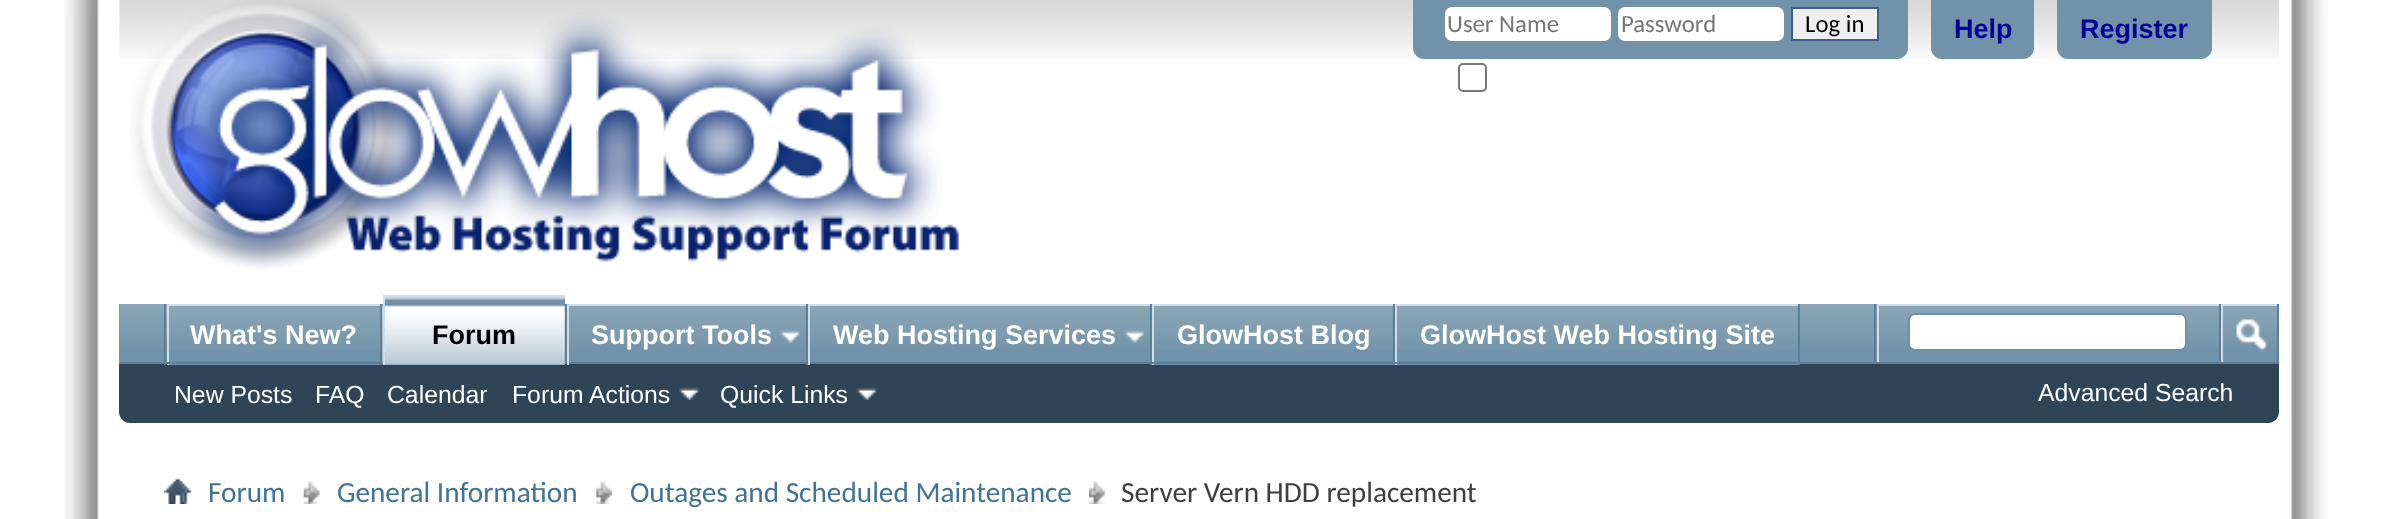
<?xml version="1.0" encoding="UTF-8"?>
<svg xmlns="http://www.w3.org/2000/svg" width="2395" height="519">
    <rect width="100%" height="100%" fill="#FFFFFF"/>
    <image x="64" y="0" width="2264" height="519" href="img_01.png"/>
    <image x="119" y="0" width="2160" height="59" href="img_02.png"/>
    <image x="130" y="0" width="830" height="270" href="img_03.png"/>
    <path d="M 1413 0 H 1908 V 48 C 1908 54 1903 59 1897 59 H 1424 C 1418 59 1413 54 1413 48 Z" fill="#7192A8"/>
    <rect x="1445" y="7" width="166" height="34" rx="7" fill="#FFFFFF"/>
    <text x="1447" y="32" font-family="Carlito" font-size="24.75" fill="#777777">User Name</text>
    <rect x="1618" y="7" width="166" height="34" rx="7" fill="#FFFFFF"/>
    <text x="1621" y="32" font-family="Carlito" font-size="24.75" fill="#777777">Password</text>
    <rect x="1792" y="8" width="86" height="32" fill="#EFEFEF" stroke="#415D8D" stroke-width="2"/>
    <text x="1805" y="32" font-family="Carlito" font-size="24.75" fill="#000000">Log in</text>
    <rect x="1459" y="64" width="27" height="27" rx="4" fill="none" stroke="#767676" stroke-width="2"/>
    <path d="M 1931 0 H 2034 V 48 C 2034 54 2029 59 2023 59 H 1942 C 1936 59 1931 54 1931 48 Z" fill="#7192A8"/>
    <text x="1954" y="38" font-family="Liberation Sans" font-size="27" font-weight="700" fill="#000099">Help</text>
    <path d="M 2057 0 H 2212 V 48 C 2212 54 2207 59 2201 59 H 2068 C 2062 59 2057 54 2057 48 Z" fill="#7192A8"/>
    <text x="2080" y="38" font-family="Liberation Sans" font-size="27" font-weight="700" fill="#000099">Register</text>
    <path d="M 119 304 H 2279 V 412 C 2279 418 2274 423 2268 423 H 130 C 124 423 119 418 119 412 Z" fill="#2F4456"/>
    <rect x="119" y="304" width="2158" height="58" fill="#7192A8"/>
    <image x="119" y="304" width="2158" height="44" href="img_04.png"/>
    <rect x="380" y="304" width="2" height="61" fill="#5A7F97"/>
    <rect x="164" y="304" width="2" height="61" fill="#5A7F97"/>
    <rect x="169" y="306" width="211" height="59" fill="#7192A8"/>
    <image x="166" y="306" width="215" height="44" href="img_05.png"/>
    <rect x="167" y="304" width="213" height="2" fill="#CEDFEB"/>
    <rect x="167" y="304" width="2" height="61" fill="#CEDFEB"/>
    <text x="190" y="344" font-family="Liberation Sans" font-size="27" font-weight="700" fill="#FFFFFF">What's New?</text>
    <rect x="565" y="304" width="2" height="58" fill="#5A7F97"/>
    <rect x="1393" y="304" width="2" height="61" fill="#5A7F97"/>
    <rect x="1154" y="306" width="239" height="59" fill="#7192A8"/>
    <rect x="1152" y="304" width="241" height="2" fill="#CEDFEB"/>
    <rect x="1152" y="304" width="2" height="61" fill="#CEDFEB"/>
    <rect x="1798" y="304" width="2" height="61" fill="#5A7F97"/>
    <rect x="1397" y="306" width="401" height="59" fill="#7192A8"/>
    <rect x="1395" y="304" width="403" height="2" fill="#CEDFEB"/>
    <rect x="1395" y="304" width="2" height="61" fill="#CEDFEB"/>
    <rect x="119" y="362" width="2160" height="2" fill="#5A7F97"/>
    <rect x="385" y="297" width="180" height="68" fill="#7192A8"/>
    <image x="382" y="297" width="183" height="68" href="img_06.png"/>
    <rect x="383" y="295" width="182" height="2" fill="#CEDFEB"/>
    <rect x="383" y="295" width="2" height="70" fill="#CEDFEB"/>
    <text x="432" y="344" font-family="Liberation Sans" font-size="27" font-weight="700" fill="#000000">Forum</text>
    <rect x="806" y="304" width="2" height="61" fill="#5A7F97"/>
    <image x="780" y="330" width="21" height="13" href="img_07.png"/>
    <rect x="567" y="304" width="239" height="2" fill="#CEDFEB"/>
    <rect x="567" y="304" width="2" height="61" fill="#CEDFEB"/>
    <text x="591" y="344" font-family="Liberation Sans" font-size="27" font-weight="700" fill="#FFFFFF">Support Tools</text>
    <rect x="1150" y="304" width="2" height="61" fill="#5A7F97"/>
    <image x="1124" y="330" width="21" height="13" href="img_08.png"/>
    <rect x="808" y="304" width="342" height="2" fill="#CEDFEB"/>
    <rect x="808" y="304" width="2" height="61" fill="#CEDFEB"/>
    <text x="833" y="344" font-family="Liberation Sans" font-size="27" font-weight="700" fill="#FFFFFF">Web Hosting Services</text>
    <image x="1154" y="306" width="239" height="44" href="img_09.png"/>
    <text x="1177" y="344" font-family="Liberation Sans" font-size="27" font-weight="700" fill="#FFFFFF">GlowHost Blog</text>
    <image x="1397" y="306" width="401" height="44" href="img_10.png"/>
    <text x="1420" y="344" font-family="Liberation Sans" font-size="27" font-weight="700" fill="#FFFFFF">GlowHost Web Hosting Site</text>
    <text x="174" y="403" font-family="Liberation Sans" font-size="24.75" fill="#FFFFFF">New Posts</text>
    <text x="315" y="403" font-family="Liberation Sans" font-size="24.75" fill="#FFFFFF">FAQ</text>
    <text x="387" y="403" font-family="Liberation Sans" font-size="24.75" fill="#FFFFFF">Calendar</text>
    <text x="512" y="403" font-family="Liberation Sans" font-size="24.75" fill="#FFFFFF">Forum Actions</text>
    <image x="679" y="387" width="21" height="13" href="img_11.png"/>
    <text x="720" y="403" font-family="Liberation Sans" font-size="24.75" fill="#FFFFFF">Quick Links</text>
    <image x="856" y="387" width="22" height="13" href="img_12.png"/>
    <rect x="1874" y="304" width="2" height="58" fill="#5A7F97"/>
    <rect x="1877" y="304" width="342" height="2" fill="#CEDFEB"/>
    <rect x="1877" y="304" width="2" height="58" fill="#CEDFEB"/>
    <rect x="1909" y="314" width="277" height="36" rx="6" fill="#FFFFFF" stroke="#6B91AB" stroke-width="2"/>
    <rect x="2277" y="304" width="2" height="58" fill="#5A7F97"/>
    <rect x="2219" y="304" width="2" height="58" fill="#5A7F97"/>
    <rect x="2221" y="304" width="56" height="2" fill="#CEDFEB"/>
    <rect x="2221" y="304" width="2" height="58" fill="#CEDFEB"/>
    <image x="2236" y="319" width="31" height="33" href="img_13.png"/>
    <text x="2038" y="401" font-family="Liberation Sans" font-size="24.75" fill="#FFFFFF">Advanced Search</text>
    <image x="164" y="478" width="28" height="26" href="img_14.png"/>
    <image x="303" y="481" width="17" height="23" href="img_15.png"/>
    <text x="208" y="502" font-family="Carlito" font-size="29.25" fill="#417394">Forum</text>
    <image x="596" y="481" width="16" height="23" href="img_16.png"/>
    <text x="337" y="502" font-family="Carlito" font-size="29.25" fill="#417394">General Information</text>
    <image x="1089" y="481" width="16" height="23" href="img_17.png"/>
    <text x="630" y="502" font-family="Carlito" font-size="29.25" fill="#417394">Outages and Scheduled Maintenance</text>
    <text x="1121" y="502" font-family="Carlito" font-size="29.25" fill="#3E3E3E">Server Vern HDD replacement</text>
</svg>
